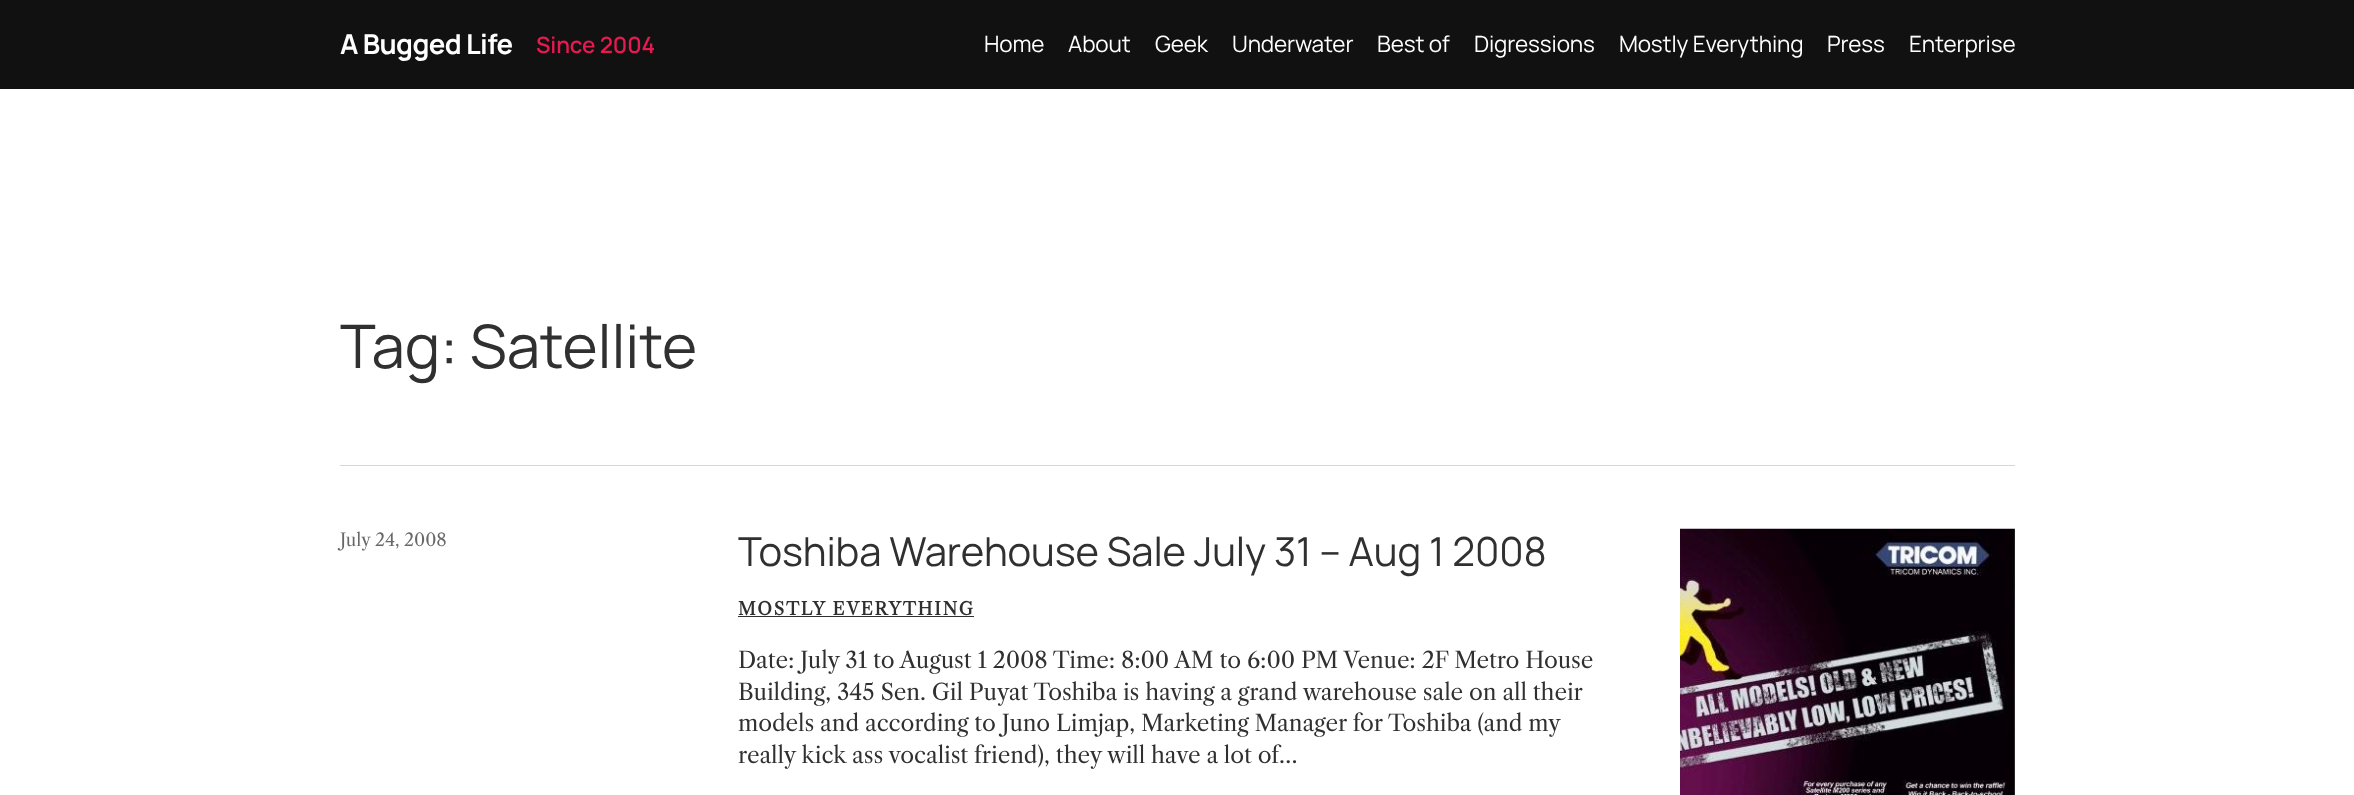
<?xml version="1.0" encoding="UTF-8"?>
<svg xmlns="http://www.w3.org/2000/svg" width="2354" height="795">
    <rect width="100%" height="100%" fill="#FFFFFF"/>
    <rect x="0" y="0" width="2354" height="89" fill="#111111"/>
    <text x="340" y="54" font-family="Manrope" font-size="27.5" font-weight="700" letter-spacing="-0.6" fill="#FFFFFF">A Bugged Life</text>
    <text x="536" y="53" font-family="Manrope" font-size="22.5" font-weight="600" letter-spacing="-0.12" fill="#E41A50">Since 2004</text>
    <text x="984" y="52" font-family="Manrope" font-size="22.5" letter-spacing="-0.12" fill="#FFFFFF">Home</text>
    <text x="1068" y="52" font-family="Manrope" font-size="22.5" letter-spacing="-0.12" fill="#FFFFFF">About</text>
    <text x="1155" y="52" font-family="Manrope" font-size="22.5" letter-spacing="-0.12" fill="#FFFFFF">Geek</text>
    <text x="1232" y="52" font-family="Manrope" font-size="22.5" letter-spacing="-0.12" fill="#FFFFFF">Underwater</text>
    <text x="1377" y="52" font-family="Manrope" font-size="22.5" letter-spacing="-0.12" fill="#FFFFFF">Best of</text>
    <text x="1474" y="52" font-family="Manrope" font-size="22.5" letter-spacing="-0.12" fill="#FFFFFF">Digressions</text>
    <text x="1619" y="52" font-family="Manrope" font-size="22.5" letter-spacing="-0.12" fill="#FFFFFF">Mostly Everything</text>
    <text x="1827" y="52" font-family="Manrope" font-size="22.5" letter-spacing="-0.12" fill="#FFFFFF">Press</text>
    <text x="1909" y="52" font-family="Manrope" font-size="22.5" letter-spacing="-0.12" fill="#FFFFFF">Enterprise</text>
    <text x="340" y="368" font-family="Manrope" font-size="60" letter-spacing="-0.12" fill="#303030">Tag: Satellite</text>
    <rect x="340" y="465" width="1675" height="1" fill="#D6D6D6"/>
    <text x="340" y="546" font-family="Libre Caslon Text" font-size="17.5" letter-spacing="-0.12" fill="#686868">July 24, 2008</text>
    <text x="738" y="566" font-family="Manrope" font-size="40" letter-spacing="-0.12" fill="#303030">Toshiba Warehouse Sale July 31 – Aug 1 2008</text>
    <text x="738" y="615" font-family="Libre Caslon Text" font-size="17.5" font-weight="700" letter-spacing="1.75" fill="#303030">MOSTLY EVERYTHING</text>
    <rect x="738" y="616" width="236" height="1" fill="#303030"/>
    <text font-family="Libre Caslon Text" font-size="22.5" letter-spacing="-0.12" fill="#303030">
        <tspan x="738" y="668">Date: July 31 to August 1 2008 Time: 8:00 AM to 6:00 PM Venue: 2F Metro House</tspan>
        <tspan x="738" y="700">Building, 345 Sen. Gil Puyat Toshiba is having a grand warehouse sale on all their</tspan>
        <tspan x="738" y="731">models and according to Juno Limjap, Marketing Manager for Toshiba (and my</tspan>
        <tspan x="738" y="763">really kick ass vocalist friend), they will have a lot of…</tspan>
    </text>
    <image x="1680" y="528" width="335" height="267" href="img_01.png"/>
</svg>
